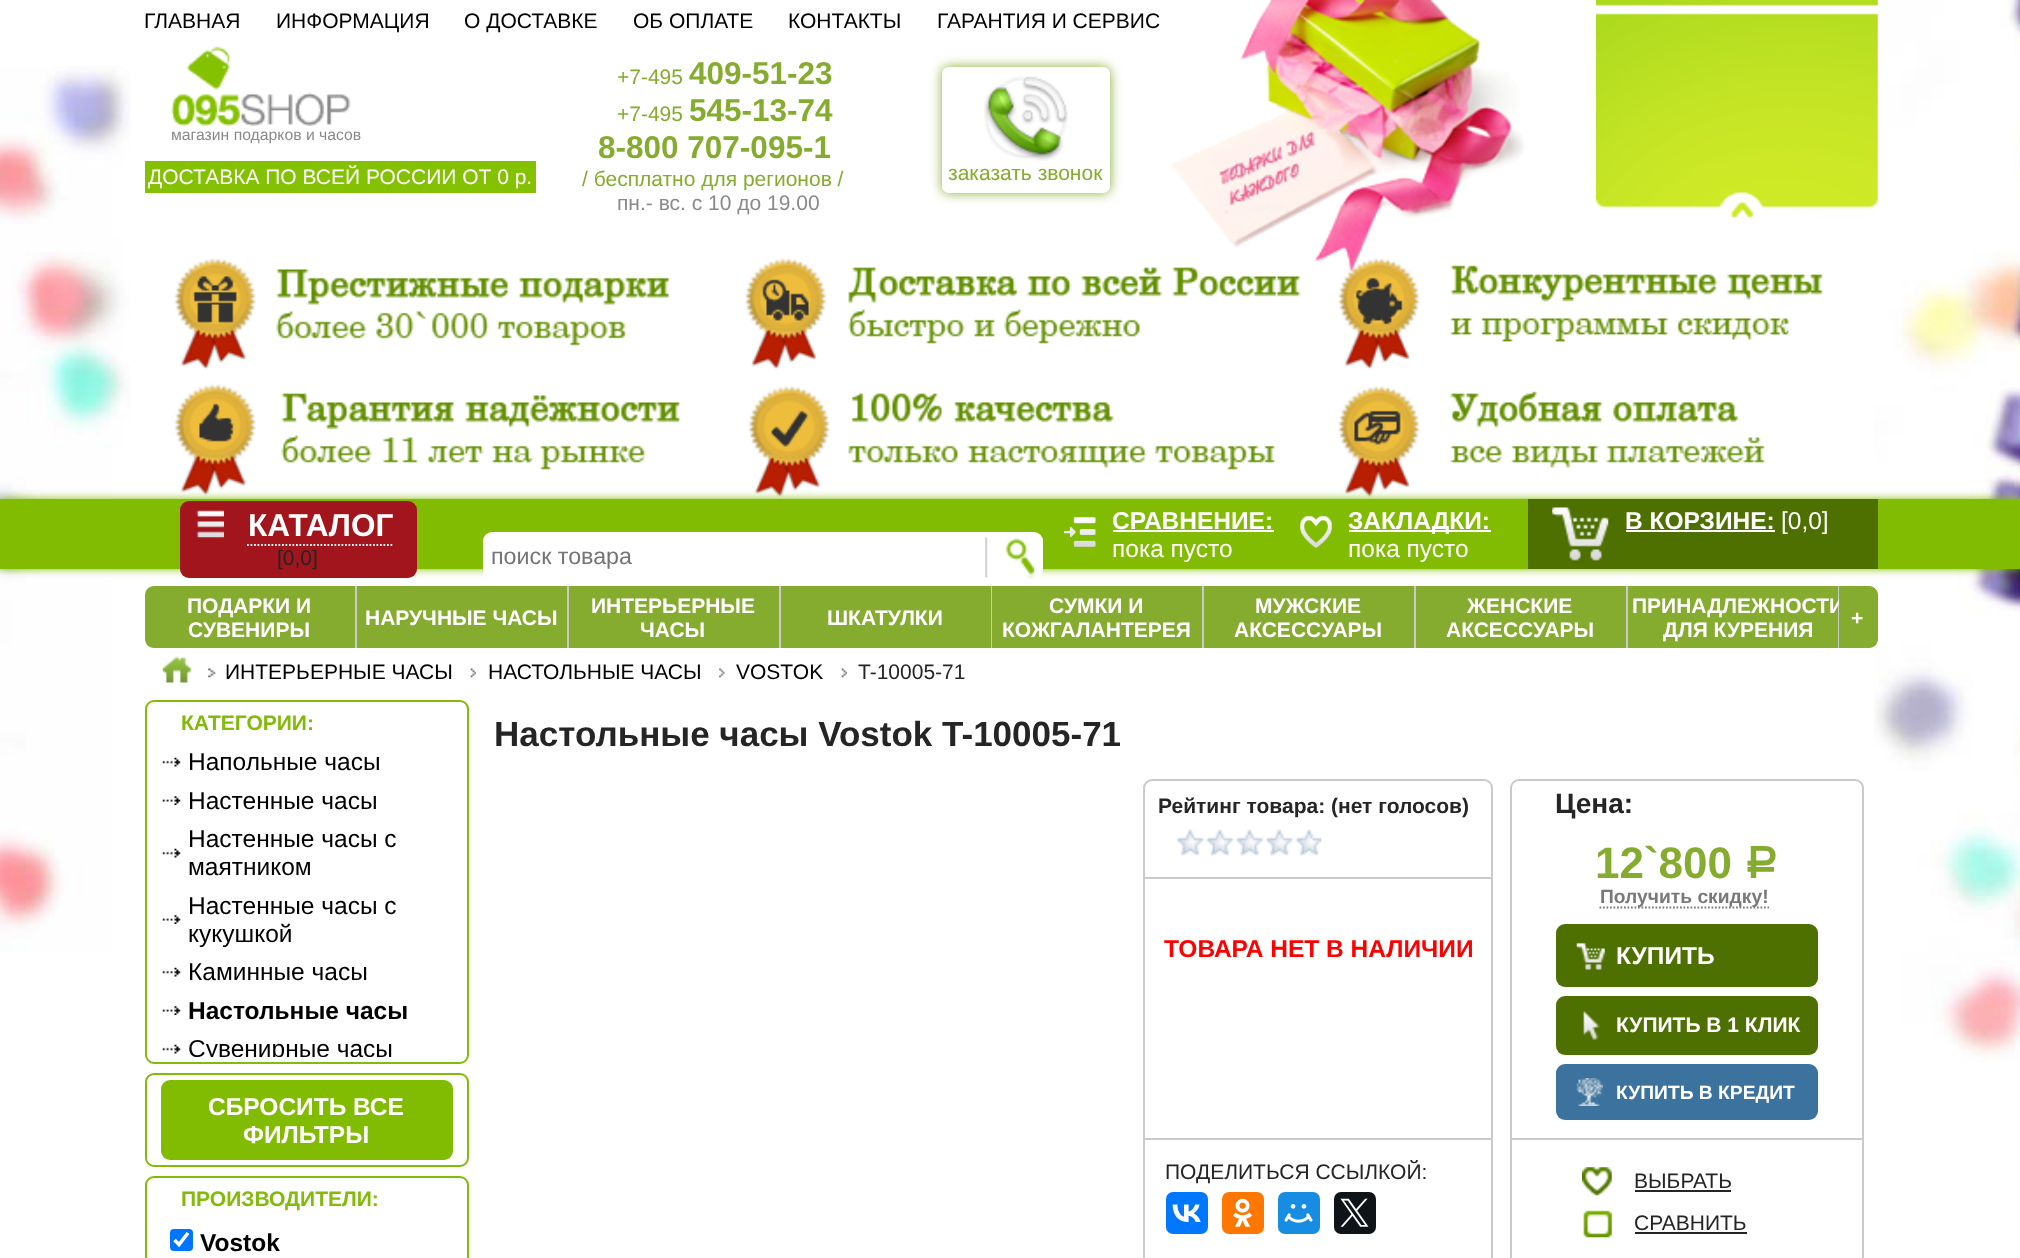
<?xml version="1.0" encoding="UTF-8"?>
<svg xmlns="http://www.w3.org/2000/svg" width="2020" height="1258">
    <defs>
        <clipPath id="clip1"><path d="M 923 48 H 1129 V 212 H 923 Z M 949 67 H 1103 C 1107 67 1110 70 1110 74 V 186 C 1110 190 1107 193 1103 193 H 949 C 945 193 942 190 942 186 V 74 C 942 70 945 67 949 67 Z" clip-rule="evenodd"/></clipPath>
        <filter id="blur1" x="-50%" y="-200%" width="200%" height="500%"><feGaussianBlur stdDeviation="6"/></filter>
        <filter id="blur2" x="-50%" y="-200%" width="200%" height="500%"><feGaussianBlur stdDeviation="4.5"/></filter>
        <clipPath id="clip2"><rect x="152" y="742" width="310" height="315"/></clipPath>
    </defs>
    <rect width="100%" height="100%" fill="#FFFFFF"/>
    <image x="0" y="66" width="131" height="886" href="img_01.png"/>
    <image x="1874" y="0" width="146" height="1063" href="img_02.png"/>
    <text x="144" y="28" font-family="Liberation Sans" font-size="21" fill="#000000">ГЛАВНАЯ</text>
    <text x="276" y="28" font-family="Liberation Sans" font-size="21" fill="#000000">ИНФОРМАЦИЯ</text>
    <text x="464" y="28" font-family="Liberation Sans" font-size="21" fill="#000000">О ДОСТАВКЕ</text>
    <text x="633" y="28" font-family="Liberation Sans" font-size="21" fill="#000000">ОБ ОПЛАТЕ</text>
    <text x="788" y="28" font-family="Liberation Sans" font-size="21" fill="#000000">КОНТАКТЫ</text>
    <text x="937" y="28" font-family="Liberation Sans" font-size="21" fill="#000000">ГАРАНТИЯ И СЕРВИС</text>
    <image x="174" y="258" width="1649" height="239" href="img_07.png"/>
    <image x="1171" y="0" width="354" height="272" href="img_03.png"/>
    <image x="1596" y="0" width="282" height="218" href="img_04.png"/>
    <image x="171" y="46" width="180" height="80" href="img_05.png"/>
    <text x="171" y="140" font-family="Liberation Sans" font-size="15.75" fill="#8A8A8A">магазин подарков и часов</text>
    <rect x="145" y="161" width="391" height="32" fill="#84C101"/>
    <text x="148" y="184" font-family="Liberation Sans" font-size="21" fill="#FFFFFF">ДОСТАВКА ПО ВСЕЙ РОССИИ ОТ 0 р.</text>
    <text x="617" y="84" font-family="Liberation Sans" font-size="21" fill="#85AC2F">+7-495</text>
    <text x="689" y="84" font-family="Liberation Sans" font-size="31.5" font-weight="700" fill="#85AC2F">409-51-23</text>
    <text x="617" y="121" font-family="Liberation Sans" font-size="21" fill="#85AC2F">+7-495</text>
    <text x="689" y="121" font-family="Liberation Sans" font-size="31.5" font-weight="700" fill="#85AC2F">545-13-74</text>
    <text x="598" y="158" font-family="Liberation Sans" font-size="31.5" font-weight="700" fill="#85AC2F">8-800 707-095-1</text>
    <text x="582" y="186" font-family="Liberation Sans" font-size="21" fill="#85AC2F">/ бесплатно для регионов /</text>
    <text x="617" y="210" font-family="Liberation Sans" font-size="21" fill="#8A8A8A">пн.- вс. c 10 до 19.00</text>
    <g clip-path="url(#clip1)">
        <rect x="942" y="67" width="168" height="126" rx="7" fill="#85AC2F" filter="url(#blur1)"/>
    </g>
    <image x="984" y="76" width="84" height="85" href="img_06.png"/>
    <text x="948" y="180" font-family="Liberation Sans" font-size="21" fill="#85AC2F">заказать звонок</text>
    <rect x="0" y="499" width="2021" height="70" fill="#81BC02" filter="url(#blur2)"/>
    <rect x="0" y="499" width="2020" height="70" fill="#81BC02"/>
    <rect x="180" y="501" width="237" height="77" rx="9" fill="#A2151D"/>
    <image x="196" y="510" width="28" height="28" href="img_08.png"/>
    <path d="M 247 545 H 394" fill="none" stroke="#FFFFFF" stroke-width="1.8" stroke-dasharray="1.75 1.75"/>
    <text x="248" y="536" font-family="Liberation Sans" font-size="31.5" font-weight="700" fill="#FFFFFF">КАТАЛОГ</text>
    <text x="277" y="565" font-family="Liberation Sans" font-size="21" fill="#252525">[0,0]</text>
    <rect x="483" y="532" width="560" height="47" rx="9" fill="#FFFFFF"/>
    <text x="491" y="564" font-family="Liberation Sans" font-size="23.25" fill="#757575">поиск товара</text>
    <image x="985" y="537" width="50" height="42" href="img_09.png"/>
    <image x="1064" y="517" width="32" height="30" href="img_10.png"/>
    <text x="1112" y="529" font-family="Liberation Sans" font-size="24.5" font-weight="700" fill="#FFFFFF">СРАВНЕНИЕ:</text>
    <rect x="1113" y="530" width="161" height="2" fill="#FFFFFF"/>
    <text x="1112" y="557" font-family="Liberation Sans" font-size="24.5" fill="#FFFFFF">пока пусто</text>
    <image x="1300" y="516" width="32" height="32" href="img_11.png"/>
    <rect x="1349" y="530" width="142" height="2" fill="#FFFFFF"/>
    <text x="1348" y="529" font-family="Liberation Sans" font-size="24.5" font-weight="700" fill="#FFFFFF">ЗАКЛАДКИ:</text>
    <text x="1348" y="557" font-family="Liberation Sans" font-size="24.5" fill="#FFFFFF">пока пусто</text>
    <rect x="1528" y="499" width="350" height="70" fill="#4D7000"/>
    <image x="1552" y="507" width="57" height="54" href="img_12.png"/>
    <text x="1625" y="529" font-family="Liberation Sans" font-size="24.5" font-weight="700" fill="#FFFFFF">В КОРЗИНЕ:</text>
    <rect x="1626" y="530" width="149" height="2" fill="#FFFFFF"/>
    <text x="1781" y="529" font-family="Liberation Sans" font-size="24.5" fill="#FFFFFF">[0,0]</text>
    <rect x="1874" y="672" width="4" height="14" fill="#FFFFFF"/>
    <path d="M 154 586 H 357 V 648 H 154 C 149 648 145 644 145 639 V 595 C 145 590 149 586 154 586 Z" fill="#85AC2F"/>
    <rect x="355" y="586" width="2" height="62" fill="#CACACA"/>
    <text x="187" y="613" font-family="Liberation Sans" font-size="21" font-weight="700" fill="#FFFFFF">ПОДАРКИ И</text>
    <text x="188" y="637" font-family="Liberation Sans" font-size="21" font-weight="700" fill="#FFFFFF">СУВЕНИРЫ</text>
    <rect x="357" y="586" width="210" height="62" fill="#85AC2F"/>
    <rect x="567" y="586" width="2" height="62" fill="#CACACA"/>
    <text x="365" y="625" font-family="Liberation Sans" font-size="21" font-weight="700" fill="#FFFFFF">НАРУЧНЫЕ ЧАСЫ</text>
    <rect x="569" y="586" width="210" height="62" fill="#85AC2F"/>
    <rect x="779" y="586" width="2" height="62" fill="#CACACA"/>
    <text x="591" y="613" font-family="Liberation Sans" font-size="21" font-weight="700" fill="#FFFFFF">ИНТЕРЬЕРНЫЕ</text>
    <text x="640" y="637" font-family="Liberation Sans" font-size="21" font-weight="700" fill="#FFFFFF">ЧАСЫ</text>
    <rect x="781" y="586" width="210" height="62" fill="#85AC2F"/>
    <rect x="991" y="586" width="1" height="62" fill="#CACACA"/>
    <text x="827" y="625" font-family="Liberation Sans" font-size="21" font-weight="700" fill="#FFFFFF">ШКАТУЛКИ</text>
    <rect x="992" y="586" width="210" height="62" fill="#85AC2F"/>
    <rect x="1202" y="586" width="2" height="62" fill="#CACACA"/>
    <text x="1049" y="613" font-family="Liberation Sans" font-size="21" font-weight="700" fill="#FFFFFF">СУМКИ И</text>
    <text x="1002" y="637" font-family="Liberation Sans" font-size="21" font-weight="700" fill="#FFFFFF">КОЖГАЛАНТЕРЕЯ</text>
    <rect x="1204" y="586" width="210" height="62" fill="#85AC2F"/>
    <rect x="1414" y="586" width="2" height="62" fill="#CACACA"/>
    <text x="1255" y="613" font-family="Liberation Sans" font-size="21" font-weight="700" fill="#FFFFFF">МУЖСКИЕ</text>
    <text x="1234" y="637" font-family="Liberation Sans" font-size="21" font-weight="700" fill="#FFFFFF">АКСЕССУАРЫ</text>
    <rect x="1416" y="586" width="210" height="62" fill="#85AC2F"/>
    <rect x="1626" y="586" width="2" height="62" fill="#CACACA"/>
    <text x="1467" y="613" font-family="Liberation Sans" font-size="21" font-weight="700" fill="#FFFFFF">ЖЕНСКИЕ</text>
    <text x="1446" y="637" font-family="Liberation Sans" font-size="21" font-weight="700" fill="#FFFFFF">АКСЕССУАРЫ</text>
    <rect x="1628" y="586" width="210" height="62" fill="#85AC2F"/>
    <rect x="1838" y="586" width="1" height="62" fill="#CACACA"/>
    <text x="1632" y="613" font-family="Liberation Sans" font-size="21" font-weight="700" fill="#FFFFFF">ПРИНАДЛЕЖНОСТИ</text>
    <text x="1663" y="637" font-family="Liberation Sans" font-size="21" font-weight="700" fill="#FFFFFF">ДЛЯ КУРЕНИЯ</text>
    <path d="M 1839 586 H 1869 C 1874 586 1878 590 1878 595 V 639 C 1878 644 1874 648 1869 648 H 1839 Z" fill="#85AC2F"/>
    <text x="1851" y="625" font-family="Liberation Sans" font-size="21" font-weight="700" fill="#FFFFFF">+</text>
    <image x="162" y="656" width="29" height="27" href="img_13.png"/>
    <image x="208" y="668" width="8" height="10" href="img_14.png"/>
    <text x="225" y="679" font-family="Liberation Sans" font-size="21" fill="#000000">ИНТЕРЬЕРНЫЕ ЧАСЫ</text>
    <image x="470" y="668" width="6" height="10" href="img_15.png"/>
    <text x="488" y="679" font-family="Liberation Sans" font-size="21" fill="#000000">НАСТОЛЬНЫЕ ЧАСЫ</text>
    <image x="719" y="668" width="6" height="10" href="img_16.png"/>
    <text x="736" y="679" font-family="Liberation Sans" font-size="21" fill="#000000">VOSTOK</text>
    <image x="841" y="668" width="6" height="10" href="img_15.png"/>
    <text x="858" y="679" font-family="Liberation Sans" font-size="21" fill="#252525">T-10005-71</text>
    <rect x="146" y="701" width="322" height="362" rx="8" fill="none" stroke="#82BB08" stroke-width="2"/>
    <text x="181" y="730" font-family="Liberation Sans" font-size="21" font-weight="700" fill="#82BB08">КАТЕГОРИИ:</text>
    <image x="162" y="757" width="19" height="10" href="img_17.png"/>
    <text x="188" y="770" font-family="Liberation Sans" font-size="24.5" fill="#000000">Напольные часы</text>
    <image x="162" y="796" width="19" height="9" href="img_18.png"/>
    <text x="188" y="809" font-family="Liberation Sans" font-size="24.5" fill="#000000">Настенные часы</text>
    <image x="162" y="848" width="19" height="10" href="img_17.png"/>
    <text font-family="Liberation Sans" font-size="24.5" fill="#000000">
        <tspan x="188" y="847">Настенные часы с</tspan>
        <tspan x="188" y="875">маятником</tspan>
    </text>
    <image x="162" y="915" width="19" height="9" href="img_18.png"/>
    <text font-family="Liberation Sans" font-size="24.5" fill="#000000">
        <tspan x="188" y="914">Настенные часы с</tspan>
        <tspan x="188" y="942">кукушкой</tspan>
    </text>
    <image x="162" y="967" width="19" height="10" href="img_17.png"/>
    <text x="188" y="980" font-family="Liberation Sans" font-size="24.5" fill="#000000">Каминные часы</text>
    <image x="162" y="1006" width="19" height="9" href="img_18.png"/>
    <text x="188" y="1019" font-family="Liberation Sans" font-size="24.5" font-weight="700" fill="#000000">Настольные часы</text>
    <image x="162" y="1044" width="19" height="10" href="img_17.png"/>
    <g clip-path="url(#clip2)">
        <text x="188" y="1057" font-family="Liberation Sans" font-size="24.5" fill="#000000">Сувенирные часы</text>
    </g>
    <rect x="146" y="1074" width="322" height="92" rx="8" fill="none" stroke="#82BB08" stroke-width="2"/>
    <rect x="161" y="1080" width="292" height="80" rx="9" fill="#81BC02"/>
    <text x="208" y="1115" font-family="Liberation Sans" font-size="24.5" font-weight="700" fill="#FFFFFF">СБРОСИТЬ ВСЕ</text>
    <text x="243" y="1143" font-family="Liberation Sans" font-size="24.5" font-weight="700" fill="#FFFFFF">ФИЛЬТРЫ</text>
    <rect x="146" y="1177" width="322" height="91" rx="8" fill="none" stroke="#82BB08" stroke-width="2"/>
    <text x="181" y="1206" font-family="Liberation Sans" font-size="21" font-weight="700" fill="#82BB08">ПРОИЗВОДИТЕЛИ:</text>
    <rect x="170" y="1229" width="23" height="22" rx="4" fill="#0075FF"/>
    <path d="M 174.5 1240 L 179 1244.5 L 188 1233" fill="none" stroke="#FFFFFF" stroke-width="3.6"/>
    <text x="200" y="1251" font-family="Liberation Sans" font-size="24.5" font-weight="700" fill="#000000">Vostok</text>
    <text x="494" y="746" font-family="Liberation Sans" font-size="35" font-weight="700" fill="#252525">Настольные часы Vostok T-10005-71</text>
    <rect x="1144" y="780" width="348" height="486" rx="8" fill="none" stroke="#CACACA" stroke-width="2"/>
    <text x="1158" y="813" font-family="Liberation Sans" font-size="21" font-weight="700" fill="#252525">Рейтинг товара: (нет голосов)</text>
    <image x="1176" y="829" width="146" height="27" href="img_19.png"/>
    <rect x="1145" y="877" width="346" height="2" fill="#CACACA"/>
    <text x="1164" y="957" font-family="Liberation Sans" font-size="24.5" font-weight="700" fill="#FF0000">ТОВАРА НЕТ В НАЛИЧИИ</text>
    <rect x="1145" y="1138" width="346" height="2" fill="#CACACA"/>
    <text x="1165" y="1179" font-family="Liberation Sans" font-size="21" fill="#252525">ПОДЕЛИТЬСЯ ССЫЛКОЙ:</text>
    <rect x="1166" y="1192" width="42" height="42" rx="7" fill="#0077FF"/>
    <image x="1172" y="1204" width="29" height="18" href="img_20.png"/>
    <rect x="1222" y="1192" width="42" height="42" rx="7" fill="#FF7700"/>
    <image x="1233" y="1198" width="19" height="29" href="img_21.png"/>
    <rect x="1278" y="1192" width="42" height="42" rx="7" fill="#168DE2"/>
    <image x="1284" y="1204" width="29" height="19" href="img_22.png"/>
    <rect x="1334" y="1192" width="42" height="42" rx="7" fill="#0F1419"/>
    <image x="1340" y="1198" width="29" height="29" href="img_23.png"/>
    <rect x="1511" y="780" width="352" height="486" rx="8" fill="none" stroke="#CACACA" stroke-width="2"/>
    <text x="1555" y="813" font-family="Liberation Sans" font-size="28" font-weight="700" fill="#252525">Цена:</text>
    <text x="1595" y="878" font-family="Liberation Sans" font-size="44" font-weight="700" fill="#85AC2F">12`800</text>
    <text x="1744" y="878" font-family="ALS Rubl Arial" font-size="44" font-weight="700" fill="#85AC2F">Р</text>
    <path d="M 1599.5 907.5 H 1769" fill="none" stroke="#7B7878" stroke-width="1.8" stroke-dasharray="1.75 1.75"/>
    <text x="1600" y="903" font-family="Liberation Sans" font-size="19.25" font-weight="700" fill="#7B7878">Получить скидку!</text>
    <rect x="1556" y="924" width="262" height="63" rx="9" fill="#4D7000"/>
    <image x="1576" y="942" width="29" height="28" href="img_24.png"/>
    <text x="1616" y="964" font-family="Liberation Sans" font-size="24.5" font-weight="700" fill="#FFFFFF">КУПИТЬ</text>
    <rect x="1556" y="996" width="262" height="59" rx="9" fill="#4D7000"/>
    <image x="1582" y="1011" width="18" height="29" href="img_25.png"/>
    <text x="1616" y="1032" font-family="Liberation Sans" font-size="21" font-weight="700" fill="#FFFFFF">КУПИТЬ В 1 КЛИК</text>
    <rect x="1556" y="1064" width="262" height="56" rx="9" fill="#3C739E"/>
    <image x="1576" y="1078" width="27" height="28" href="img_26.png"/>
    <text x="1616" y="1099" font-family="Liberation Sans" font-size="19.25" font-weight="700" fill="#FFFFFF">КУПИТЬ В КРЕДИТ</text>
    <rect x="1512" y="1138" width="350" height="2" fill="#CACACA"/>
    <image x="1582" y="1167" width="30" height="29" href="img_27.png"/>
    <text x="1634" y="1188" font-family="Liberation Sans" font-size="21" fill="#252525">ВЫБРАТЬ</text>
    <rect x="1635" y="1190" width="96" height="2" fill="#252525"/>
    <image x="1583" y="1210" width="29" height="28" href="img_28.png"/>
    <text x="1634" y="1230" font-family="Liberation Sans" font-size="21" fill="#252525">СРАВНИТЬ</text>
    <rect x="1635" y="1232" width="112" height="2" fill="#252525"/>
</svg>
